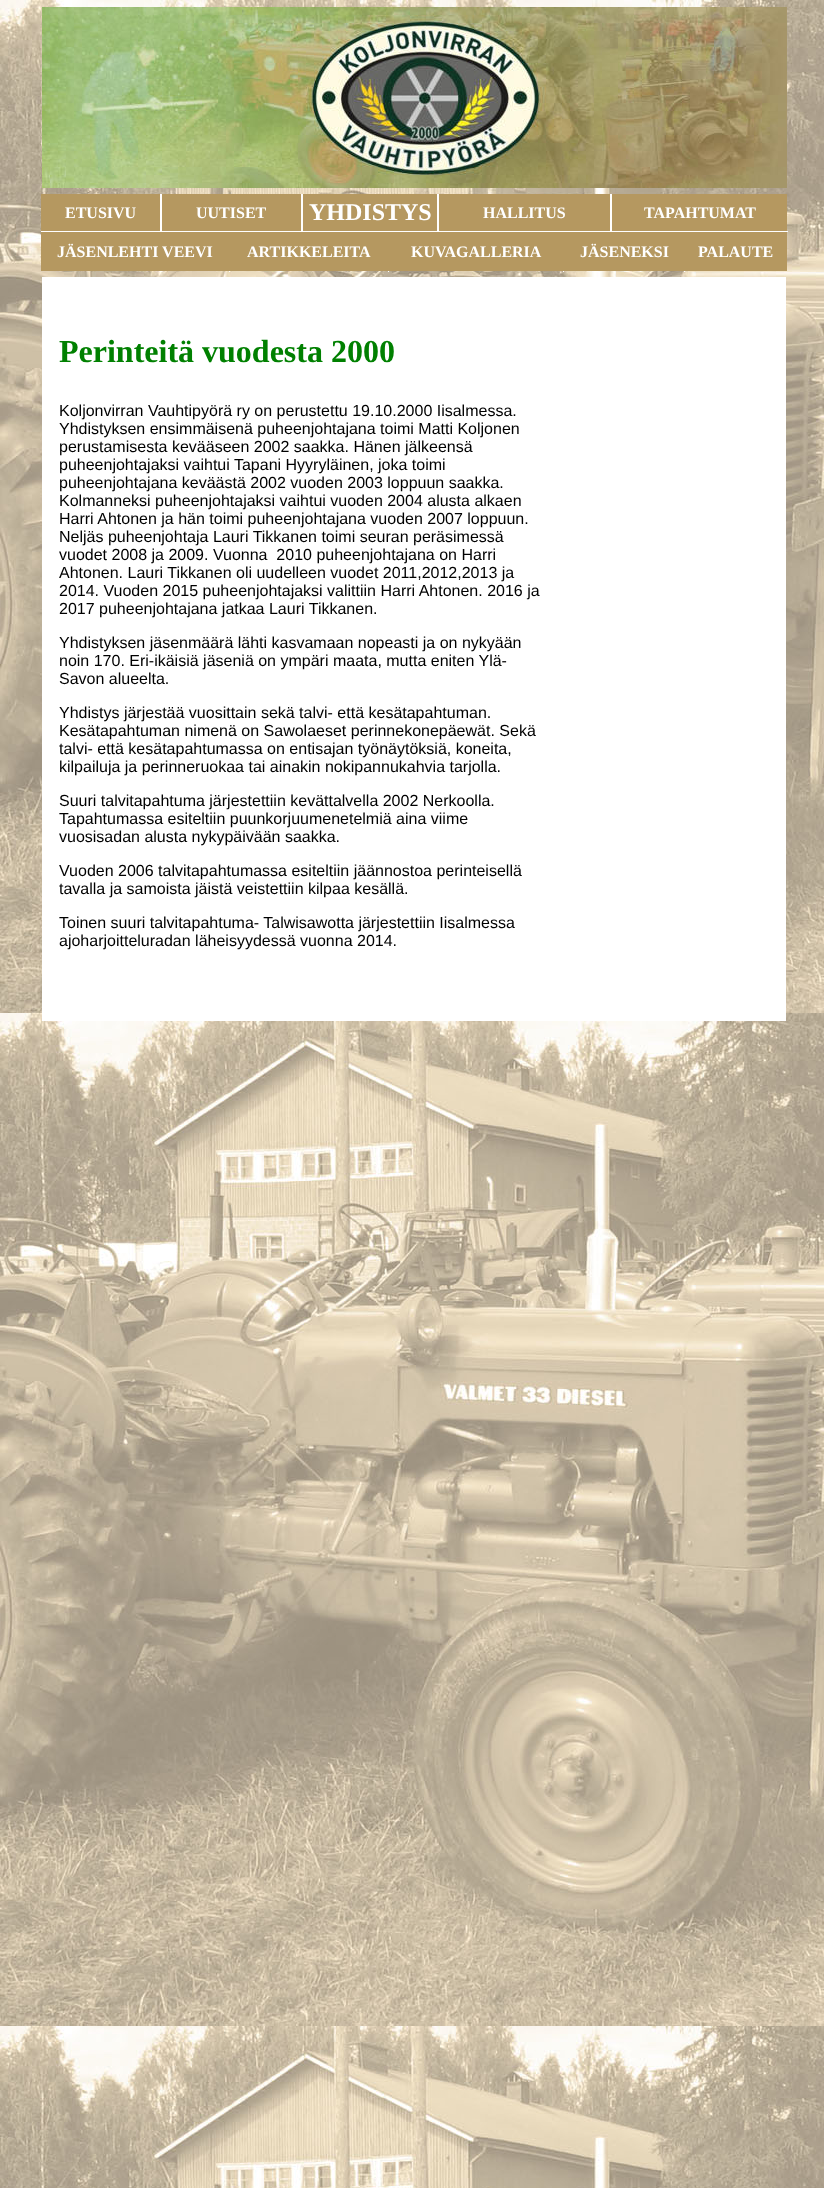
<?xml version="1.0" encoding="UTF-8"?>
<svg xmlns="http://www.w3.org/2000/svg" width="824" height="2188">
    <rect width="100%" height="100%" fill="#FFFFFF"/>
    <image x="0" y="0" width="824" height="2188" href="img_01.png"/>
    <image x="42" y="7" width="745" height="181" href="img_02.png"/>
    <rect x="41" y="194" width="119" height="37" fill="#B59860"/>
    <rect x="160" y="194" width="2" height="38" fill="#FFFFFF"/>
    <text x="65" y="218" font-family="Liberation Serif" font-size="16" font-weight="700" fill="#FFFFFF">ETUSIVU</text>
    <rect x="162" y="194" width="139" height="37" fill="#B59860"/>
    <rect x="301" y="194" width="2" height="38" fill="#FFFFFF"/>
    <text x="196" y="218" font-family="Liberation Serif" font-size="16" font-weight="700" fill="#FFFFFF">UUTISET</text>
    <rect x="303" y="194" width="134" height="37" fill="#B59860"/>
    <rect x="437" y="194" width="2" height="38" fill="#FFFFFF"/>
    <text x="309" y="220" font-family="Liberation Serif" font-size="24" font-weight="700" fill="#FFFFFF">YHDISTYS</text>
    <rect x="439" y="194" width="171" height="37" fill="#B59860"/>
    <rect x="610" y="194" width="2" height="38" fill="#FFFFFF"/>
    <text x="483" y="218" font-family="Liberation Serif" font-size="16" font-weight="700" fill="#FFFFFF">HALLITUS</text>
    <rect x="612" y="194" width="175" height="37" fill="#B59860"/>
    <text x="644" y="218" font-family="Liberation Serif" font-size="16" font-weight="700" fill="#FFFFFF">TAPAHTUMAT</text>
    <rect x="685" y="232" width="102" height="39" fill="#B59860"/>
    <rect x="41" y="232" width="644" height="39" fill="#B59860"/>
    <text x="57" y="257" font-family="Liberation Serif" font-size="16" font-weight="700" fill="#FFFFFF">JÄSENLEHTI VEEVI</text>
    <rect x="229" y="271" width="1" height="1" fill="#FFFFFF"/>
    <text x="247" y="257" font-family="Liberation Serif" font-size="16" font-weight="700" fill="#FFFFFF">ARTIKKELEITA</text>
    <rect x="388" y="271" width="1" height="1" fill="#FFFFFF"/>
    <text x="411" y="257" font-family="Liberation Serif" font-size="16" font-weight="700" fill="#FFFFFF">KUVAGALLERIA</text>
    <rect x="563" y="271" width="1" height="1" fill="#FFFFFF"/>
    <text x="580" y="257" font-family="Liberation Serif" font-size="16" font-weight="700" fill="#FFFFFF">JÄSENEKSI</text>
    <rect x="41" y="231" width="747" height="1" fill="#FFFFFF"/>
    <rect x="684" y="271" width="1" height="1" fill="#FFFFFF"/>
    <text x="698" y="257" font-family="Liberation Serif" font-size="16" font-weight="700" fill="#FFFFFF">PALAUTE</text>
    <rect x="42" y="277" width="744" height="744" fill="#FFFFFF"/>
    <text x="59" y="362" font-family="Liberation Serif" font-size="32" font-weight="700" fill="#008000">Perinteitä vuodesta 2000</text>
    <text font-family="Liberation Sans" font-size="16" fill="#000000" xml:space="preserve"><tspan x="59" y="416">Koljonvirran Vauhtipyörä ry on perustettu 19.10.2000 Iisalmessa.</tspan><tspan x="59" y="434">Yhdistyksen ensimmäisenä puheenjohtajana toimi Matti Koljonen</tspan><tspan x="59" y="452">perustamisesta kevääseen 2002 saakka. Hänen jälkeensä</tspan><tspan x="59" y="470">puheenjohtajaksi vaihtui Tapani Hyyryläinen, joka toimi</tspan><tspan x="59" y="488">puheenjohtajana keväästä 2002 vuoden 2003 loppuun saakka.</tspan><tspan x="59" y="506">Kolmanneksi puheenjohtajaksi vaihtui vuoden 2004 alusta alkaen</tspan><tspan x="59" y="524">Harri Ahtonen ja hän toimi puheenjohtajana vuoden 2007 loppuun.</tspan><tspan x="59" y="542">Neljäs puheenjohtaja Lauri Tikkanen toimi seuran peräsimessä</tspan><tspan x="59" y="560">vuodet 2008 ja 2009. Vuonna  2010 puheenjohtajana on Harri</tspan><tspan x="59" y="578">Ahtonen. Lauri Tikkanen oli uudelleen vuodet 2011,2012,2013 ja</tspan><tspan x="59" y="596">2014. Vuoden 2015 puheenjohtajaksi valittiin Harri Ahtonen. 2016 ja</tspan><tspan x="59" y="614">2017 puheenjohtajana jatkaa Lauri Tikkanen.</tspan></text>
    <text font-family="Liberation Sans" font-size="16" fill="#000000">
        <tspan x="59" y="648">Yhdistyksen jäsenmäärä lähti kasvamaan nopeasti ja on nykyään</tspan>
        <tspan x="59" y="666">noin 170. Eri-ikäisiä jäseniä on ympäri maata, mutta eniten Ylä-</tspan>
        <tspan x="59" y="684">Savon alueelta.</tspan>
    </text>
    <text font-family="Liberation Sans" font-size="16" fill="#000000">
        <tspan x="59" y="718">Yhdistys järjestää vuosittain sekä talvi- että kesätapahtuman.</tspan>
        <tspan x="59" y="736">Kesätapahtuman nimenä on Sawolaeset perinnekonepäewät. Sekä</tspan>
        <tspan x="59" y="754">talvi- että kesätapahtumassa on entisajan työnäytöksiä, koneita,</tspan>
        <tspan x="59" y="772">kilpailuja ja perinneruokaa tai ainakin nokipannukahvia tarjolla.</tspan>
    </text>
    <text font-family="Liberation Sans" font-size="16" fill="#000000">
        <tspan x="59" y="806">Suuri talvitapahtuma järjestettiin kevättalvella 2002 Nerkoolla.</tspan>
        <tspan x="59" y="824">Tapahtumassa esiteltiin puunkorjuumenetelmiä aina viime</tspan>
        <tspan x="59" y="842">vuosisadan alusta nykypäivään saakka.</tspan>
    </text>
    <text font-family="Liberation Sans" font-size="16" fill="#000000">
        <tspan x="59" y="876">Vuoden 2006 talvitapahtumassa esiteltiin jäännostoa perinteisellä</tspan>
        <tspan x="59" y="894">tavalla ja samoista jäistä veistettiin kilpaa kesällä.</tspan>
    </text>
    <text font-family="Liberation Sans" font-size="16" fill="#000000">
        <tspan x="59" y="928">Toinen suuri talvitapahtuma- Talwisawotta järjestettiin Iisalmessa</tspan>
        <tspan x="59" y="946">ajoharjoitteluradan läheisyydessä vuonna 2014.</tspan>
    </text>
</svg>
